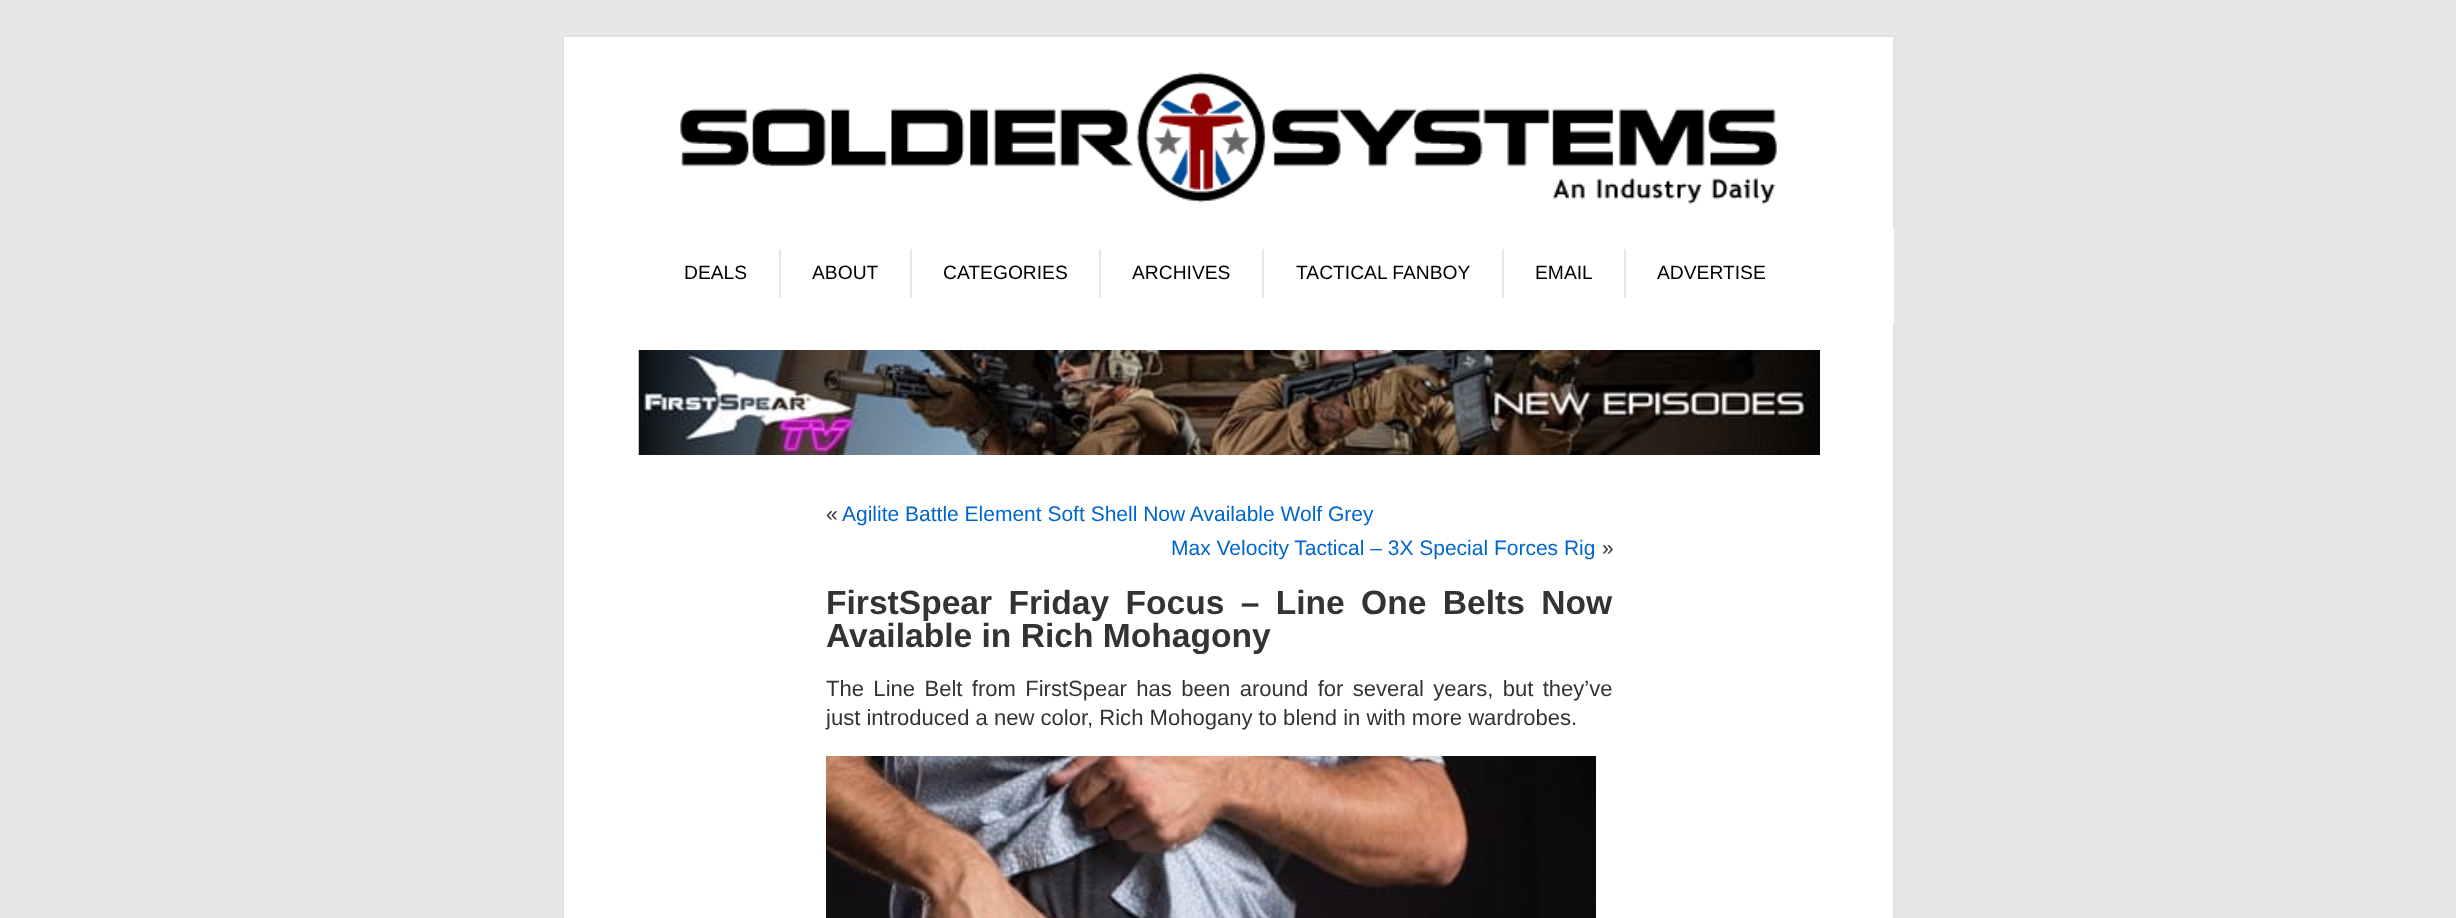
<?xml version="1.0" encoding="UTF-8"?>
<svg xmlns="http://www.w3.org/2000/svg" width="2456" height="918">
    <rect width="100%" height="100%" fill="#E7E7E7"/>
    <rect x="563" y="36" width="1331" height="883" fill="#FFFFFF" stroke="#E2E2E2" stroke-width="2"/>
    <image x="680" y="72" width="1097" height="132" href="img_01.png"/>
    <rect x="1893" y="228" width="1" height="96" fill="#FFFFFF"/>
    <text x="684" y="279" font-family="Liberation Sans" font-size="19.25" fill="#000000">DEALS</text>
    <rect x="779" y="249" width="2" height="49" fill="#E7E7E7"/>
    <text x="812" y="279" font-family="Liberation Sans" font-size="19.25" fill="#000000">ABOUT</text>
    <rect x="910" y="249" width="2" height="49" fill="#E7E7E7"/>
    <text x="943" y="279" font-family="Liberation Sans" font-size="19.25" fill="#000000">CATEGORIES</text>
    <rect x="1099" y="249" width="2" height="49" fill="#E7E7E7"/>
    <text x="1132" y="279" font-family="Liberation Sans" font-size="19.25" fill="#000000">ARCHIVES</text>
    <rect x="1262" y="249" width="2" height="49" fill="#E7E7E7"/>
    <text x="1296" y="279" font-family="Liberation Sans" font-size="19.25" fill="#000000">TACTICAL FANBOY</text>
    <rect x="1502" y="249" width="2" height="49" fill="#E7E7E7"/>
    <text x="1535" y="279" font-family="Liberation Sans" font-size="19.25" fill="#000000">EMAIL</text>
    <rect x="1624" y="249" width="2" height="49" fill="#E7E7E7"/>
    <text x="1657" y="279" font-family="Liberation Sans" font-size="19.25" fill="#000000">ADVERTISE</text>
    <image x="638" y="350" width="1182" height="105" href="img_02.png"/>
    <text x="826" y="521" font-family="Liberation Sans" font-size="21" fill="#333333">«</text>
    <text x="842" y="521" font-family="Liberation Sans" font-size="21" fill="#0066CC">Agilite Battle Element Soft Shell Now Available Wolf Grey</text>
    <text x="1171" y="555" font-family="Liberation Sans" font-size="21" fill="#0066CC">Max Velocity Tactical – 3X Special Forces Rig</text>
    <text x="1602" y="555" font-family="Liberation Sans" font-size="21" fill="#333333">»</text>
    <text font-family="Liberation Sans" font-size="33.6" font-weight="700" fill="#333333">
        <tspan x="826" y="614" word-spacing="7">FirstSpear Friday Focus – Line One Belts Now</tspan>
        <tspan x="826" y="647">Available in Rich Mohagony</tspan>
    </text>
    <text font-family="Liberation Sans" font-size="22.05" fill="#333333">
        <tspan x="826" y="696" word-spacing="3.25">The Line Belt from FirstSpear has been around for several years, but they’ve</tspan>
        <tspan x="826" y="725">just introduced a new color, Rich Mohogany to blend in with more wardrobes.</tspan>
    </text>
    <image x="826" y="756" width="770" height="162" href="img_03.png"/>
</svg>
